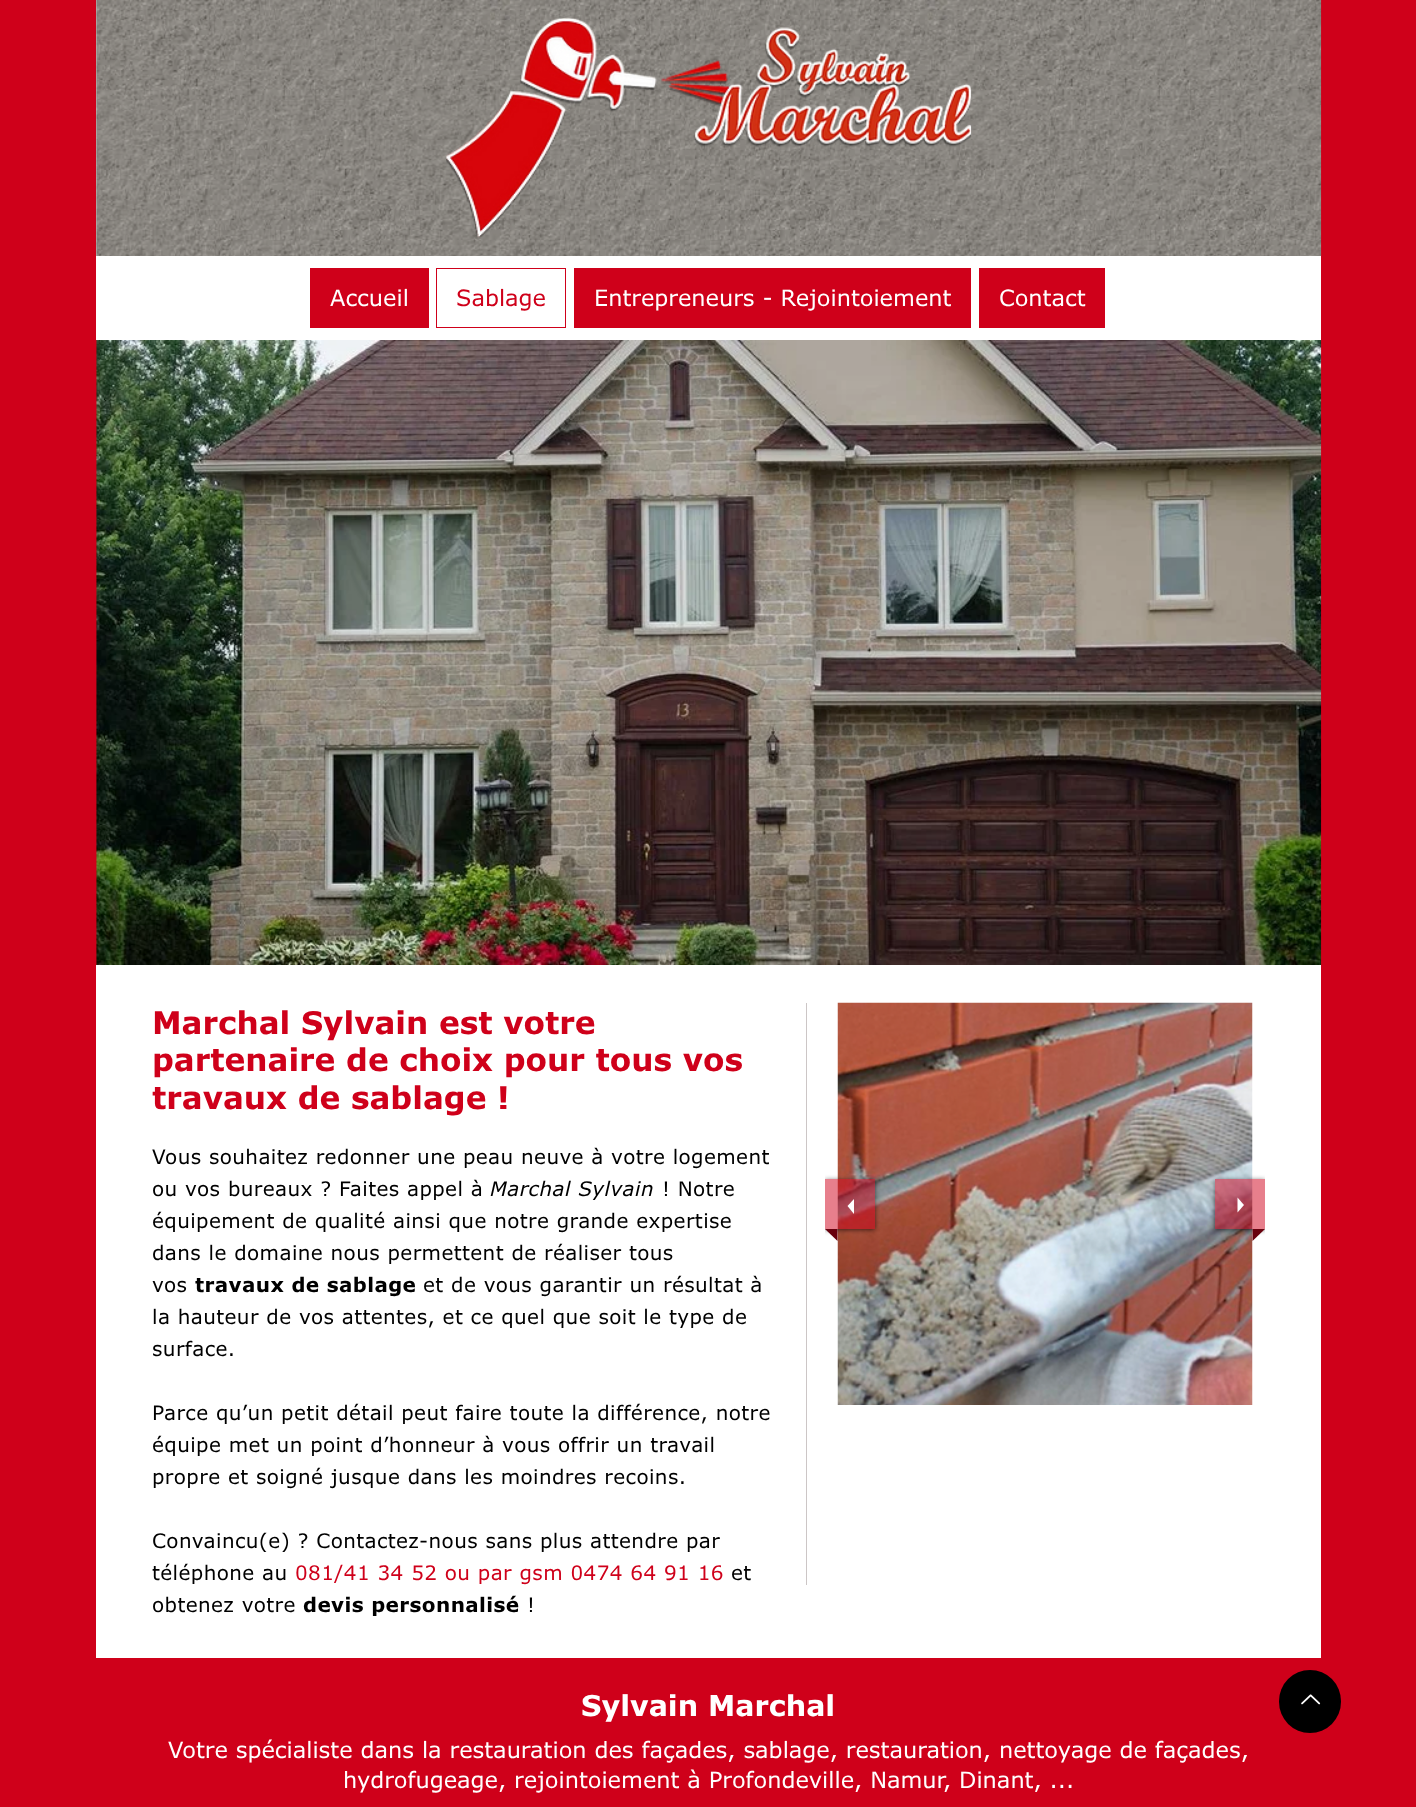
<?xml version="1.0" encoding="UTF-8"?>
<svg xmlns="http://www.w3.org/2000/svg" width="1416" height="1807">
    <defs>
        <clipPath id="clip1"><rect x="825" y="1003" width="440" height="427"/></clipPath>
        <clipPath id="clip2"><path d="M 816 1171 H 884 V 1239 H 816 Z M 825 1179 H 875 V 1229 H 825 Z" clip-rule="evenodd"/></clipPath>
        <filter id="blur1" x="-50%" y="-200%" width="200%" height="500%"><feGaussianBlur stdDeviation="2.5"/></filter>
        <clipPath id="clip3"><path d="M 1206 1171 H 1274 V 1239 H 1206 Z M 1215 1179 H 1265 V 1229 H 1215 Z" clip-rule="evenodd"/></clipPath>
    </defs>
    <rect width="100%" height="100%" fill="#CF001A"/>
    <rect x="96" y="0" width="1" height="256" fill="#CCC6C6"/>
    <image x="96" y="0" width="1226" height="256" href="img_01.png"/>
    <image x="446" y="17" width="526" height="221" href="img_02.png"/>
    <rect x="96" y="256" width="1225" height="84" fill="#FFFFFF"/>
    <rect x="310" y="268" width="119" height="60" fill="#CF001A"/>
    <text x="330" y="306" font-family="Verdana" font-size="22.5" fill="#FFFFFF">Accueil</text>
    <rect x="436.5" y="268.5" width="129" height="59" fill="none" stroke="#CF001A"/>
    <text x="456" y="306" font-family="Verdana" font-size="22.5" fill="#CF001A">Sablage</text>
    <rect x="574" y="268" width="397" height="60" fill="#CF001A"/>
    <text x="594" y="306" font-family="Verdana" font-size="22.5" fill="#FFFFFF">Entrepreneurs - Rejointoiement</text>
    <rect x="979" y="268" width="126" height="60" fill="#CF001A"/>
    <text x="999" y="306" font-family="Verdana" font-size="22.5" fill="#FFFFFF">Contact</text>
    <image x="96" y="340" width="1226" height="625" href="img_03.png"/>
    <rect x="96" y="965" width="1225" height="693" fill="#FFFFFF"/>
    <text font-family="Verdana" font-size="31.25" font-weight="700" fill="#CF001A">
        <tspan x="152" y="1034">Marchal Sylvain est votre</tspan>
        <tspan x="152" y="1071">partenaire de choix pour tous vos</tspan>
        <tspan x="152" y="1109">travaux de sablage !</tspan>
    </text>
    <text font-family="Verdana" font-size="20" letter-spacing="0.4" fill="#000000">
        <tspan x="152" y="1164">Vous souhaitez redonner une peau neuve à votre logement</tspan>
        <tspan x="152" y="1196">ou vos bureaux ? Faites appel à</tspan>
    </text>
    <text x="490" y="1196" font-family="Verdana" font-size="20" font-style="italic" letter-spacing="0.4" fill="#000000">Marchal Sylvain</text>
    <text x="662" y="1196" font-family="Verdana" font-size="20" letter-spacing="0.4" fill="#000000">! Notre</text>
    <text font-family="Verdana" font-size="20" letter-spacing="0.4" fill="#000000">
        <tspan x="152" y="1228">équipement de qualité ainsi que notre grande expertise</tspan>
        <tspan x="152" y="1260">dans le domaine nous permettent de réaliser tous</tspan>
        <tspan x="152" y="1292">vos</tspan>
    </text>
    <text x="195" y="1292" font-family="Verdana" font-size="20" font-weight="700" letter-spacing="0.4" fill="#000000">travaux de sablage</text>
    <text x="423" y="1292" font-family="Verdana" font-size="20" letter-spacing="0.4" fill="#000000">et de vous garantir un résultat à</text>
    <text font-family="Verdana" font-size="20" letter-spacing="0.4" fill="#000000">
        <tspan x="152" y="1324">la hauteur de vos attentes, et ce quel que soit le type de</tspan>
        <tspan x="152" y="1356">surface.</tspan>
    </text>
    <text font-family="Verdana" font-size="20" letter-spacing="0.4" fill="#000000">
        <tspan x="152" y="1420">Parce qu’un petit détail peut faire toute la différence, notre</tspan>
        <tspan x="152" y="1452">équipe met un point d’honneur à vous offrir un travail</tspan>
        <tspan x="152" y="1484">propre et soigné jusque dans les moindres recoins.</tspan>
    </text>
    <text font-family="Verdana" font-size="20" letter-spacing="0.4" fill="#000000">
        <tspan x="152" y="1548">Convaincu(e) ? Contactez-nous sans plus attendre par</tspan>
        <tspan x="152" y="1580">téléphone au</tspan>
    </text>
    <text x="295" y="1580" font-family="Verdana" font-size="20" letter-spacing="0.4" fill="#CF001A">081/41 34 52 ou par gsm 0474 64 91 16</text>
    <text x="731" y="1580" font-family="Verdana" font-size="20" letter-spacing="0.4" fill="#000000">et</text>
    <text x="152" y="1612" font-family="Verdana" font-size="20" letter-spacing="0.4" fill="#000000">obtenez votre</text>
    <text x="303" y="1612" font-family="Verdana" font-size="20" font-weight="700" letter-spacing="0.4" fill="#000000">devis personnalisé</text>
    <text x="527" y="1612" font-family="Verdana" font-size="20" letter-spacing="0.4" fill="#000000">!</text>
    <rect x="806" y="1003" width="1" height="582" fill="#CCC6C6"/>
    <image x="837" y="1002" width="416" height="403" href="img_04.png"/>
    <g clip-path="url(#clip1)">
        <g clip-path="url(#clip2)">
            <rect x="825" y="1180" width="50" height="50" fill="#000000" fill-opacity="0.6" filter="url(#blur1)"/>
        </g>
    </g>
    <rect x="825" y="1179" width="50" height="50" fill="#CF001A" fill-opacity="0.5"/>
    <path d="M 854 1199 V 1214 L 847.5 1206 Z" fill="#FFFFFF"/>
    <path d="M 837.5 1229 V 1241 L 825 1229 Z" fill="#68000D"/>
    <g clip-path="url(#clip1)">
        <g clip-path="url(#clip3)">
            <rect x="1215" y="1180" width="50" height="50" fill="#000000" fill-opacity="0.6" filter="url(#blur1)"/>
        </g>
    </g>
    <rect x="1215" y="1179" width="50" height="50" fill="#CF001A" fill-opacity="0.5"/>
    <path d="M 1237.5 1212.5 V 1197.5 L 1244 1205 Z" fill="#FFFFFF"/>
    <path d="M 1252.5 1241 V 1229 H 1265 Z" fill="#68000D"/>
    <text x="581" y="1716" font-family="Verdana" font-size="28.75" font-weight="700" fill="#FFFFFF">Sylvain Marchal</text>
    <text x="168" y="1758" font-family="Verdana" font-size="22.5" fill="#FFFFFF">Votre spécialiste dans la restauration des façades, sablage, restauration, nettoyage de façades,</text>
    <text x="343" y="1788" font-family="Verdana" font-size="22.5" fill="#FFFFFF">hydrofugeage, rejointoiement à Profondeville, Namur, Dinant, ...</text>
    <rect x="1279" y="1670" width="62" height="63" rx="31" fill="#000000"/>
    <image x="1301" y="1694" width="20" height="11" href="img_05.png"/>
</svg>
